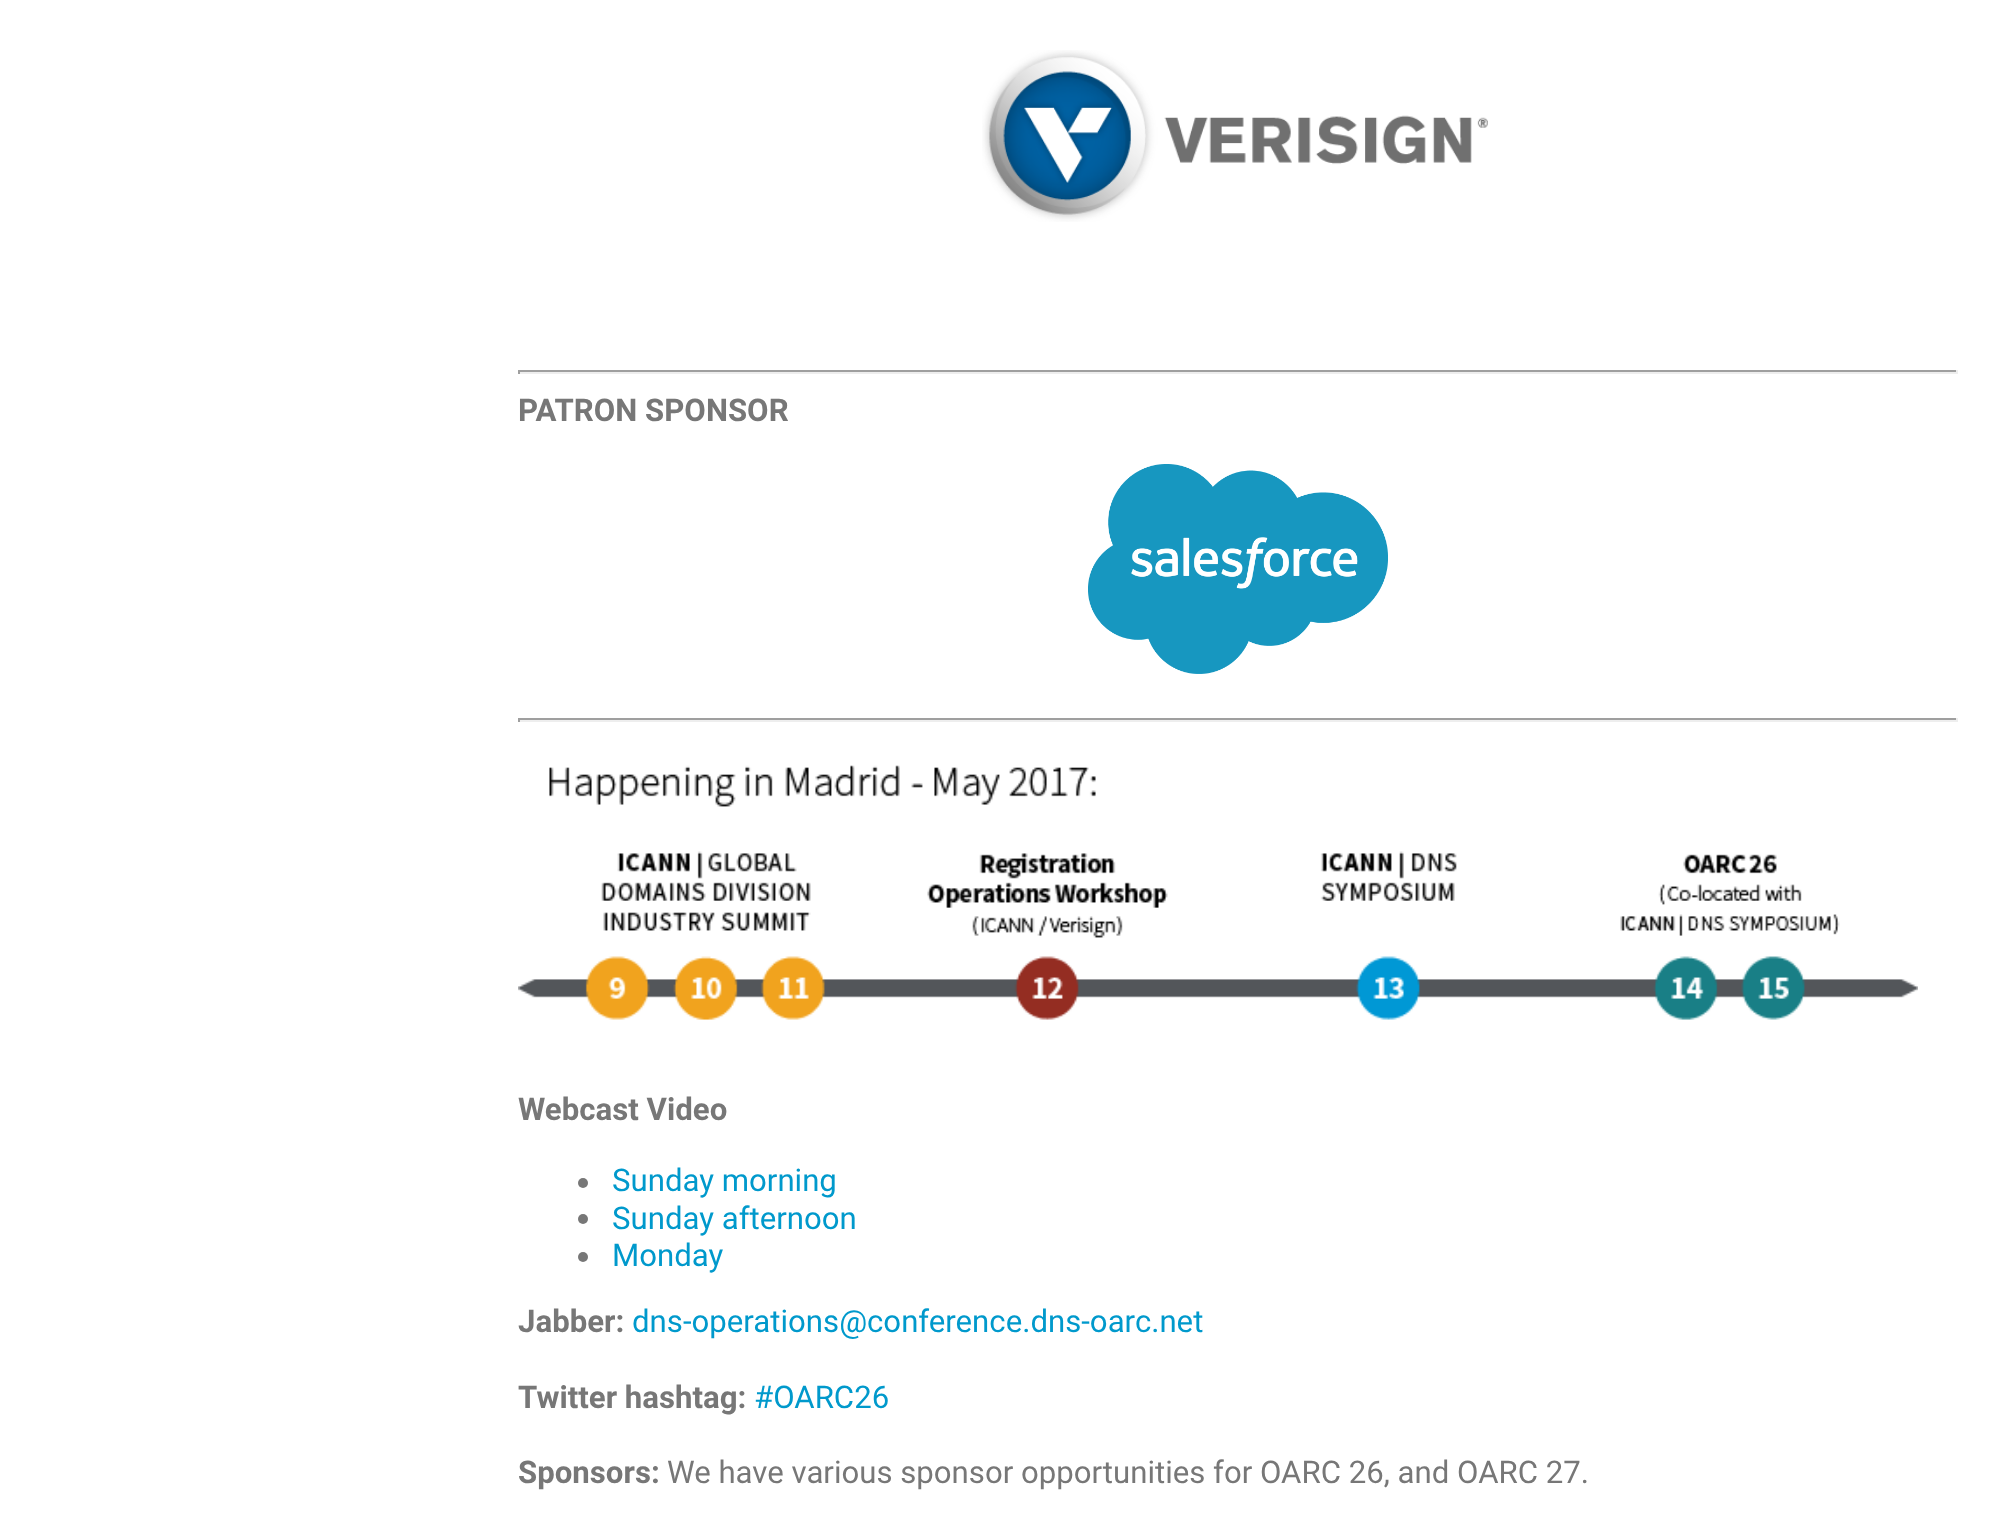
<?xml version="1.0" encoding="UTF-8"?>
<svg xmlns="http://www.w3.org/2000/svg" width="2016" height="1530">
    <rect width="100%" height="100%" fill="#FFFFFF"/>
    <image x="982" y="50" width="506" height="172" href="img_01.png"/>
    <rect x="518" y="370" width="1440" height="2" fill="#9F9F9F"/>
    <rect x="1956" y="370" width="2" height="4" fill="#EEEEEE"/>
    <rect x="518" y="372" width="1440" height="2" fill="#EEEEEE"/>
    <rect x="518" y="370" width="2" height="4" fill="#9F9F9F"/>
    <text x="518" y="421" font-family="Roboto" font-size="31.2" font-weight="700" fill="#777777">PATRON SPONSOR</text>
    <image x="1088" y="464" width="300" height="210" href="img_02.png"/>
    <rect x="518" y="718" width="1440" height="2" fill="#9F9F9F"/>
    <rect x="1956" y="718" width="2" height="4" fill="#EEEEEE"/>
    <rect x="518" y="720" width="1440" height="2" fill="#EEEEEE"/>
    <rect x="518" y="718" width="2" height="4" fill="#9F9F9F"/>
    <image x="518" y="765" width="1400" height="255" href="img_03.png"/>
    <text x="518" y="1120" font-family="Roboto" font-size="31.2" font-weight="700" fill="#777777">Webcast Video</text>
    <circle cx="583" cy="1183" r="5" fill="#777777"/>
    <text x="612" y="1191" font-family="Roboto" font-size="31.2" fill="#0099CC">Sunday morning</text>
    <circle cx="583" cy="1219" r="5" fill="#777777"/>
    <text x="612" y="1229" font-family="Roboto" font-size="31.2" fill="#0099CC">Sunday afternoon</text>
    <circle cx="583" cy="1257" r="5" fill="#777777"/>
    <text x="612" y="1266" font-family="Roboto" font-size="31.2" fill="#0099CC">Monday</text>
    <text x="518" y="1332" font-family="Roboto" font-size="31.2" font-weight="700" fill="#777777">Jabber:</text>
    <text x="632" y="1332" font-family="Roboto" font-size="31.2" fill="#0099CC">dns-operations@conference.dns-oarc.net</text>
    <text x="518" y="1408" font-family="Roboto" font-size="31.2" font-weight="700" fill="#777777">Twitter hashtag:</text>
    <text x="754" y="1408" font-family="Roboto" font-size="31.2" fill="#0099CC">#OARC26</text>
    <text x="518" y="1483" font-family="Roboto" font-size="31.2" font-weight="700" fill="#777777">Sponsors:</text>
    <text x="667" y="1483" font-family="Roboto" font-size="31.2" fill="#777777">We have various sponsor opportunities for OARC 26, and OARC 27.</text>
</svg>
